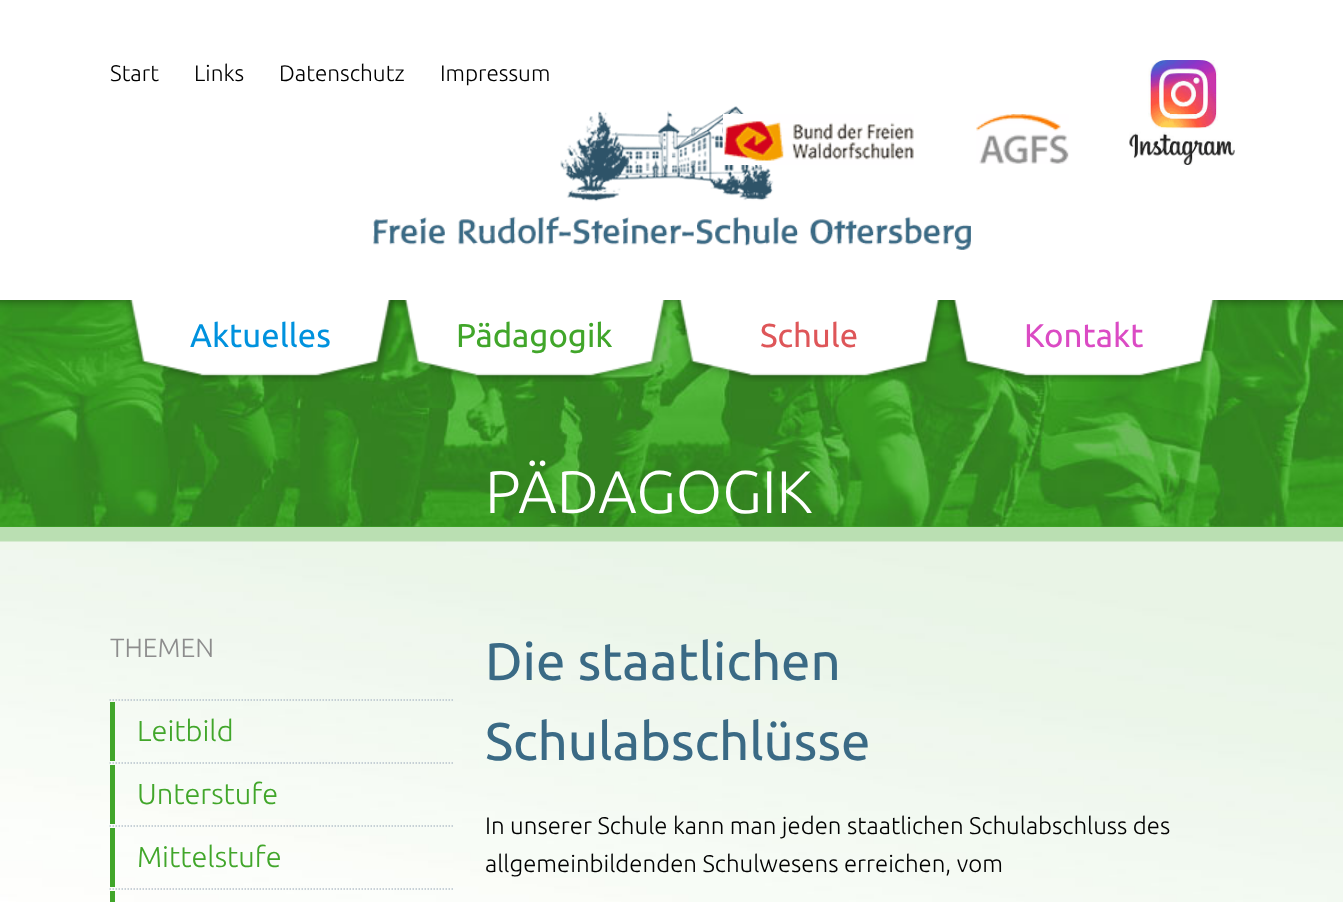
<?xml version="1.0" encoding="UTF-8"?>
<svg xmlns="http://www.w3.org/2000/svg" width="1343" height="902">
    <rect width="100%" height="100%" fill="#FFFFFF"/>
    <text x="110" y="81" font-family="Ubuntu" font-size="22.5" font-weight="300" fill="#000000">Start</text>
    <text x="194" y="81" font-family="Ubuntu" font-size="22.5" font-weight="300" fill="#000000">Links</text>
    <text x="279" y="81" font-family="Ubuntu" font-size="22.5" font-weight="300" fill="#000000">Datenschutz</text>
    <text x="440" y="81" font-family="Ubuntu" font-size="22.5" font-weight="300" fill="#000000">Impressum</text>
    <image x="373" y="106" width="598" height="144" href="img_04.png"/>
    <image x="723" y="114" width="191" height="51" href="img_01.png"/>
    <image x="976" y="114" width="93" height="50" href="img_02.png"/>
    <image x="1129" y="60" width="106" height="105" href="img_03.png"/>
    <rect x="0" y="526" width="1343" height="1" fill="#41A62A"/>
    <image x="0" y="300" width="1343" height="227" href="img_05.png"/>
    <rect x="0" y="527" width="1343" height="15" fill="#BADFB2"/>
    <image x="0" y="300" width="1343" height="8" href="img_06.png"/>
    <image x="126" y="300" width="269" height="82" href="img_07.png"/>
    <text x="190" y="347" font-family="Ubuntu" font-size="33" fill="#0092DE">Aktuelles</text>
    <image x="400" y="300" width="270" height="82" href="img_08.png"/>
    <text x="456" y="347" font-family="Ubuntu" font-size="33" fill="#41A62A">Pädagogik</text>
    <image x="674" y="300" width="270" height="82" href="img_09.png"/>
    <text x="760" y="347" font-family="Ubuntu" font-size="33" fill="#DE5659">Schule</text>
    <image x="949" y="300" width="269" height="82" href="img_10.png"/>
    <text x="1024" y="347" font-family="Ubuntu" font-size="33" fill="#DB4BC4">Kontakt</text>
    <text x="485" y="513" font-family="Ubuntu" font-size="60" font-weight="300" fill="#FFFFFF">PÄDAGOGIK</text>
    <image x="0" y="541" width="1343" height="361" href="img_11.png"/>
    <text x="110" y="657" font-family="Ubuntu" font-size="26.5" font-weight="300" fill="#8D8D8D">THEMEN</text>
    <path d="M 109.5 700 H 454.5" fill="none" stroke="#B7C2CC" stroke-width="1.5" stroke-dasharray="1.5 1.5"/>
    <path d="M 109.5 763 H 454.5" fill="none" stroke="#B7C2CC" stroke-width="1.5" stroke-dasharray="1.5 1.5"/>
    <rect x="110" y="702" width="5" height="59" fill="#41A62A"/>
    <text x="137" y="741" font-family="Ubuntu" font-size="29" font-weight="300" fill="#41A62A">Leitbild</text>
    <path d="M 109.5 826 H 454.5" fill="none" stroke="#B7C2CC" stroke-width="1.5" stroke-dasharray="1.5 1.5"/>
    <rect x="110" y="765" width="5" height="59" fill="#41A62A"/>
    <text x="137" y="804" font-family="Ubuntu" font-size="29" font-weight="300" fill="#41A62A">Unterstufe</text>
    <path d="M 109.5 889 H 454.5" fill="none" stroke="#B7C2CC" stroke-width="1.5" stroke-dasharray="1.5 1.5"/>
    <rect x="110" y="828" width="5" height="59" fill="#41A62A"/>
    <text x="137" y="867" font-family="Ubuntu" font-size="29" font-weight="300" fill="#41A62A">Mittelstufe</text>
    <rect x="110" y="891" width="5" height="11" fill="#41A62A"/>
    <text font-family="Ubuntu" font-size="52.75" fill="#3A6A85">
        <tspan x="485" y="680">Die staatlichen</tspan>
        <tspan x="485" y="760">Schulabschlüsse</tspan>
    </text>
    <text font-family="Ubuntu" font-size="24" font-weight="300" fill="#000000">
        <tspan x="485" y="834">In unserer Schule kann man jeden staatlichen Schulabschluss des</tspan>
        <tspan x="485" y="872">allgemeinbildenden Schulwesens erreichen, vom</tspan>
    </text>
</svg>
